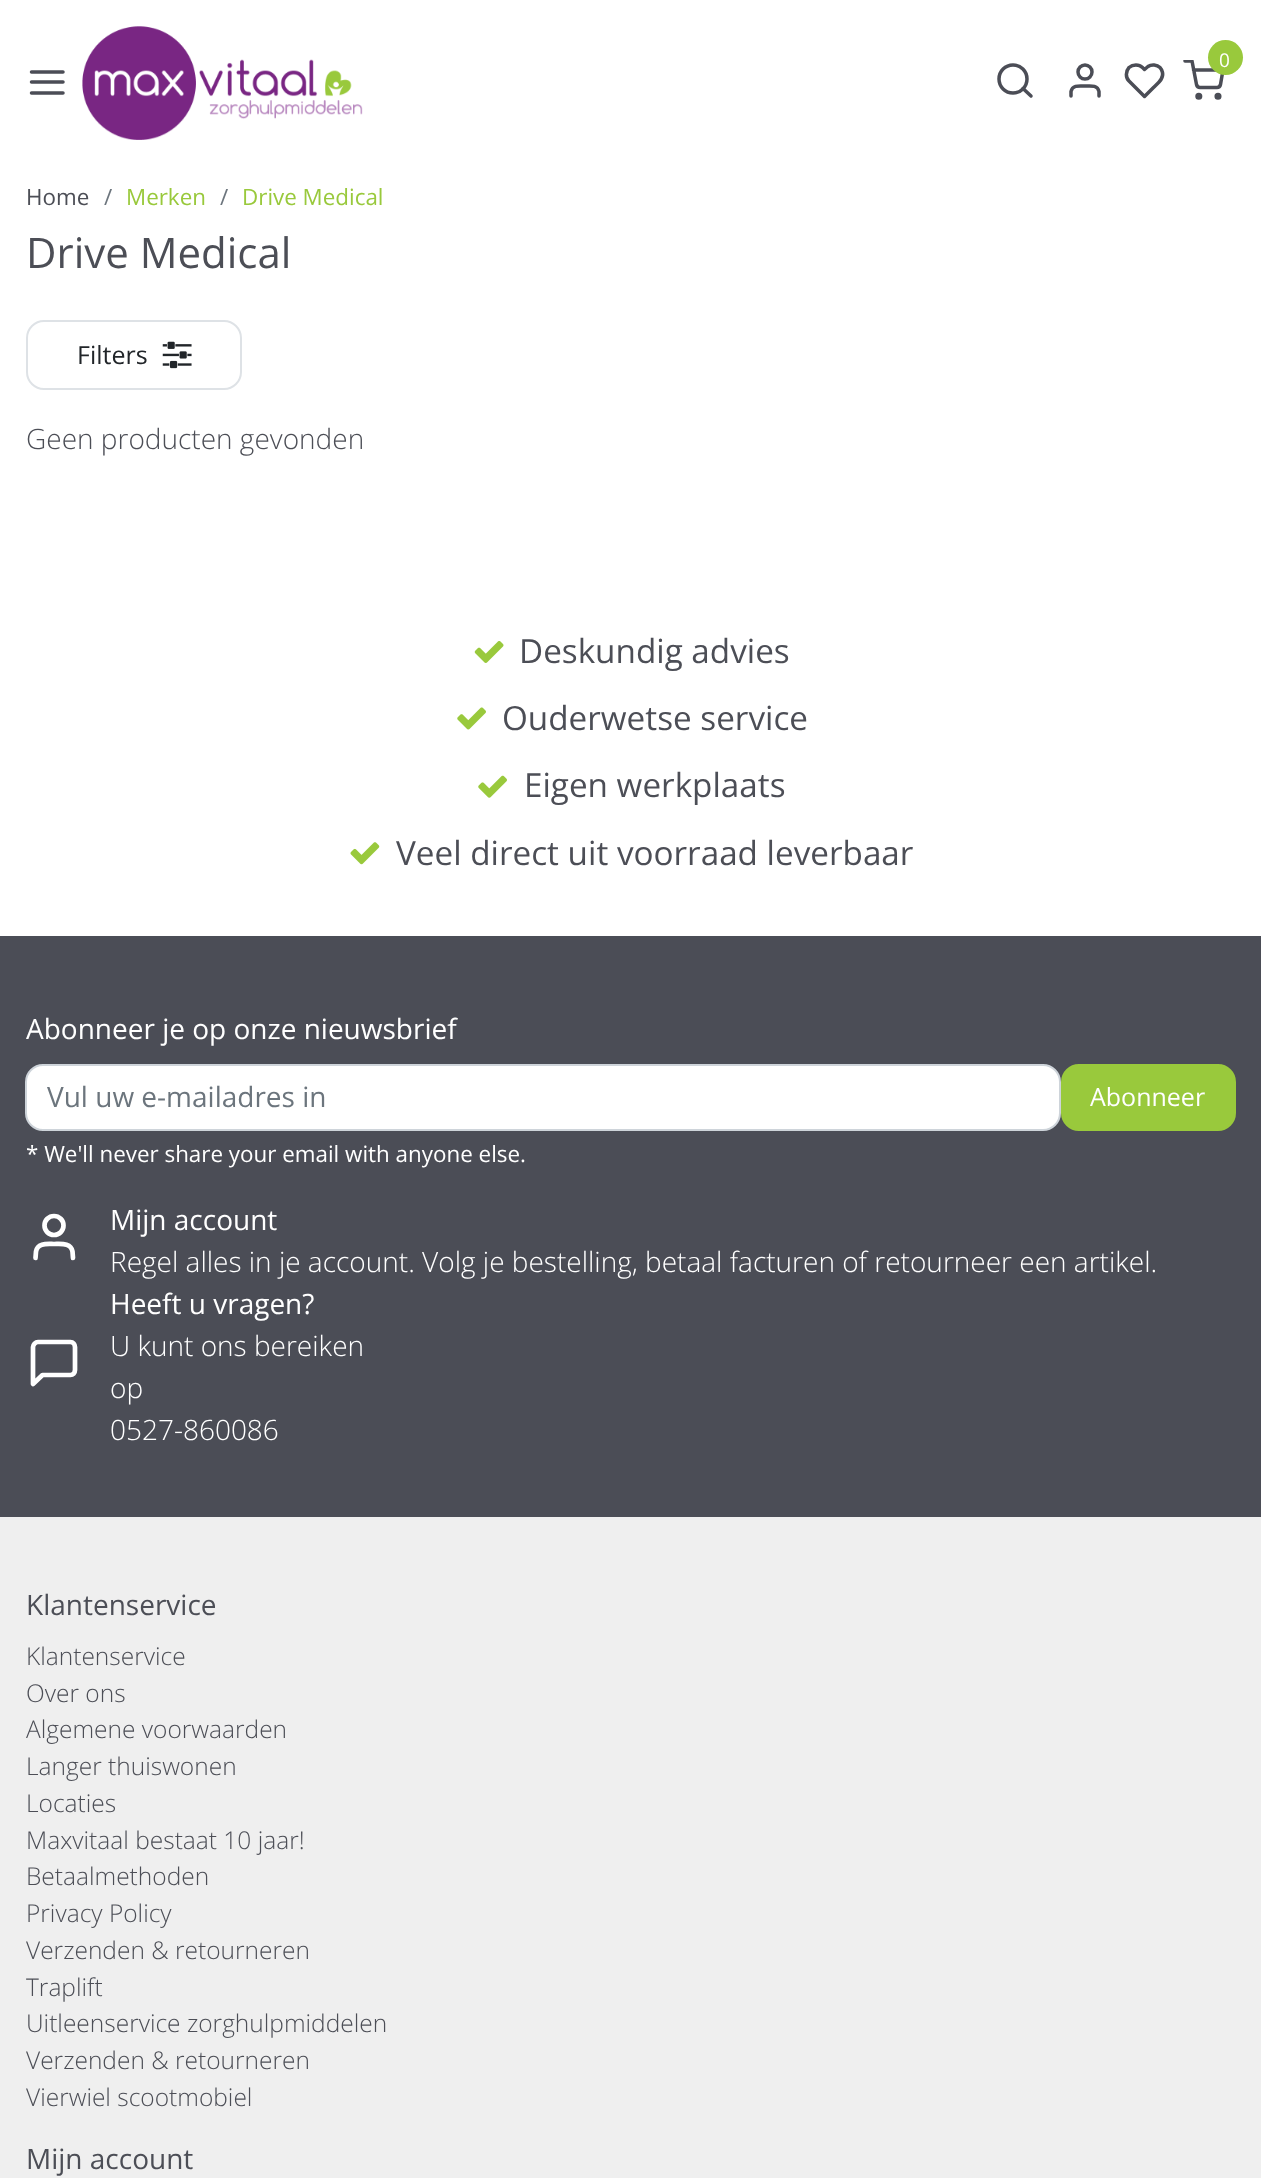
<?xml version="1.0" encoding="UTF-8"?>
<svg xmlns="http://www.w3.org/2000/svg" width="1261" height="2178">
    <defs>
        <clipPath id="clip1"><rect x="1183" y="60" width="42" height="42"/></clipPath>
    </defs>
    <rect width="100%" height="100%" fill="#FFFFFF"/>
    <path d="M 31.5 82 H 63 M 31.5 72 H 63 M 31.5 93 H 63" fill="none" stroke="#4B4D56" stroke-width="3.5" stroke-linecap="round" stroke-linejoin="round"/>
    <image x="82" y="26" width="281" height="114" href="img_01.png"/>
    <g clip-path="url(#clip1)">
        <path d="M 1185 61 H 1192 L 1196.5 84.5 C 1197 86.5 1198 87.5 1200 87.5 H 1217 C 1218.5 87.5 1220 86.5 1220.5 84.5 L 1223 70 H 1193.5" fill="none" stroke="#4B4D56" stroke-width="3.5" stroke-linecap="round" stroke-linejoin="round"/>
    </g>
    <circle cx="1225.5" cy="57.5" r="17.5" fill="#99C93C"/>
    <text x="1219" y="67" font-family="Open Sans" font-size="19" fill="#FFFFFF">0</text>
    <circle cx="1198.8" cy="96.2" r="1.8" fill="none" stroke="#4B4D56" stroke-width="3.5"/>
    <circle cx="1218" cy="96.2" r="1.8" fill="none" stroke="#4B4D56" stroke-width="3.5"/>
    <circle cx="1013" cy="79" r="14" fill="none" stroke="#4B4D56" stroke-width="3.5"/>
    <path d="M 1031 96 L 1023 88.5" fill="none" stroke="#4B4D56" stroke-width="3.5" stroke-linecap="round" stroke-linejoin="round"/>
    <path d="M 1099 96 V 91.5 C 1097.5 84.5 1090 86 1085 86 C 1080 86 1072.5 84.5 1071 91.5 V 96" fill="none" stroke="#4B4D56" stroke-width="3.5" stroke-linecap="round" stroke-linejoin="round"/>
    <circle cx="1085" cy="72" r="7" fill="none" stroke="#4B4D56" stroke-width="3.5"/>
    <path d="M 1160 67.5 C 1157 64.5 1151.5 64 1148 66.5 L 1144.5 69.5 L 1142.5 67.5 C 1139 64 1133 64 1129 67.5 C 1125.5 71.5 1125.5 77.5 1129 81 L 1144.5 96.5 L 1153.5 87.5 C 1157.5 83.5 1164 79 1162.5 72.5 C 1162 70.5 1161.5 69 1160 67.5 Z" fill="none" stroke="#4B4D56" stroke-width="3.5" stroke-linecap="round" stroke-linejoin="round"/>
    <text x="26" y="205" font-family="Open Sans" font-size="22.4" fill="#4C4E56">Home</text>
    <text x="104" y="205" font-family="Open Sans" font-size="22.4" fill="#6C757D">/</text>
    <text x="126" y="205" font-family="Open Sans" font-size="22.4" fill="#99C93C">Merken</text>
    <text x="220" y="205" font-family="Open Sans" font-size="22.4" fill="#6C757D">/</text>
    <text x="242" y="205" font-family="Open Sans" font-size="22.4" fill="#99C93C">Drive Medical</text>
    <text x="26" y="268" font-family="Open Sans" font-size="42" fill="#4C4E56">Drive Medical</text>
    <rect x="27" y="321" width="214" height="68" rx="17" fill="none" stroke="#DEE2E6" stroke-width="2"/>
    <text x="77" y="364" font-family="Open Sans" font-size="25" fill="#212529">Filters</text>
    <image x="162" y="341" width="30" height="28" href="img_02.png"/>
    <text x="26" y="449" font-family="Open Sans" font-size="28" font-weight="300" fill="#4C4E56">Geen producten gevonden</text>
    <image x="474" y="641" width="30" height="22" href="img_03.png"/>
    <text x="519" y="663" font-family="Open Sans" font-size="33.25" fill="#4C4E56">Deskundig advies</text>
    <image x="457" y="707" width="29" height="23" href="img_04.png"/>
    <text x="502" y="730" font-family="Open Sans" font-size="33.25" fill="#4C4E56">Ouderwetse service</text>
    <image x="478" y="775" width="29" height="23" href="img_05.png"/>
    <text x="524" y="797" font-family="Open Sans" font-size="33.25" fill="#4C4E56">Eigen werkplaats</text>
    <image x="350" y="842" width="30" height="23" href="img_06.png"/>
    <text x="396" y="865" font-family="Open Sans" font-size="33.25" fill="#4C4E56">Veel direct uit voorraad leverbaar</text>
    <rect x="0" y="936" width="1261" height="581" fill="#4B4D56"/>
    <text x="26" y="1039" font-family="Open Sans" font-size="28" fill="#FFFFFF">Abonneer je op onze nieuwsbrief</text>
    <rect x="26" y="1065" width="1034" height="65" rx="17" fill="#FFFFFF" stroke="#CED4DA" stroke-width="2"/>
    <text x="47" y="1107" font-family="Open Sans" font-size="28" fill="#6C757D">Vul uw e-mailadres in</text>
    <rect x="1062" y="1065" width="173" height="65" rx="17" fill="#99C93C" stroke="#99C93C" stroke-width="2"/>
    <text x="1090" y="1106" font-family="Open Sans" font-size="25" fill="#FFFFFF">Abonneer</text>
    <text x="26" y="1162" font-family="Open Sans" font-size="22.4" fill="#FFFFFF">* We'll never share your email with anyone else.</text>
    <path d="M 73 1258 L 72.5 1251.5 C 71 1242.5 61 1244 54 1244 C 47.5 1244 37.5 1242.5 36 1251.5 L 35.5 1258" fill="none" stroke="#FFFFFF" stroke-width="4.7" stroke-linecap="round" stroke-linejoin="round"/>
    <circle cx="54" cy="1225.5" r="9.5" fill="none" stroke="#FFFFFF" stroke-width="4.7"/>
    <text x="110" y="1230" font-family="Open Sans" font-size="28" fill="#FFFFFF">Mijn account</text>
    <text x="110" y="1272" font-family="Open Sans" font-size="28" font-weight="300" fill="#FFFFFF">Regel alles in je account. Volg je bestelling, betaal facturen of retourneer een artikel.</text>
    <path d="M 75 1370 C 75 1373 73 1375 70.5 1375 H 42.5 L 33 1384 V 1347 C 33 1344.5 35.5 1342 38 1342 H 70.5 C 73 1342 75 1344.5 75 1347 Z" fill="none" stroke="#FFFFFF" stroke-width="4.7" stroke-linecap="round" stroke-linejoin="round"/>
    <text x="110" y="1314" font-family="Open Sans" font-size="28" fill="#FFFFFF">Heeft u vragen?</text>
    <text font-family="Open Sans" font-size="28" font-weight="300" fill="#FFFFFF">
        <tspan x="110" y="1356">U kunt ons bereiken</tspan>
        <tspan x="110" y="1398">op</tspan>
        <tspan x="110" y="1440">0527-860086</tspan>
    </text>
    <rect x="0" y="1517" width="1261" height="661" fill="#EFEFEF"/>
    <text x="26" y="1615" font-family="Open Sans" font-size="28" fill="#4C4E56">Klantenservice</text>
    <text font-family="Open Sans" font-size="24.5" font-weight="300" fill="#4C4E56">
        <tspan x="26" y="1665">Klantenservice</tspan>
        <tspan x="26" y="1702">Over ons</tspan>
        <tspan x="26" y="1738">Algemene voorwaarden</tspan>
        <tspan x="26" y="1775">Langer thuiswonen</tspan>
        <tspan x="26" y="1812">Locaties</tspan>
        <tspan x="26" y="1849">Maxvitaal bestaat 10 jaar!</tspan>
        <tspan x="26" y="1885">Betaalmethoden</tspan>
        <tspan x="26" y="1922">Privacy Policy</tspan>
        <tspan x="26" y="1959">Verzenden &amp; retourneren</tspan>
        <tspan x="26" y="1996">Traplift</tspan>
        <tspan x="26" y="2032">Uitleenservice zorghulpmiddelen</tspan>
        <tspan x="26" y="2069">Verzenden &amp; retourneren</tspan>
        <tspan x="26" y="2106">Vierwiel scootmobiel</tspan>
    </text>
    <text x="26" y="2169" font-family="Open Sans" font-size="28" fill="#4C4E56">Mijn account</text>
</svg>
